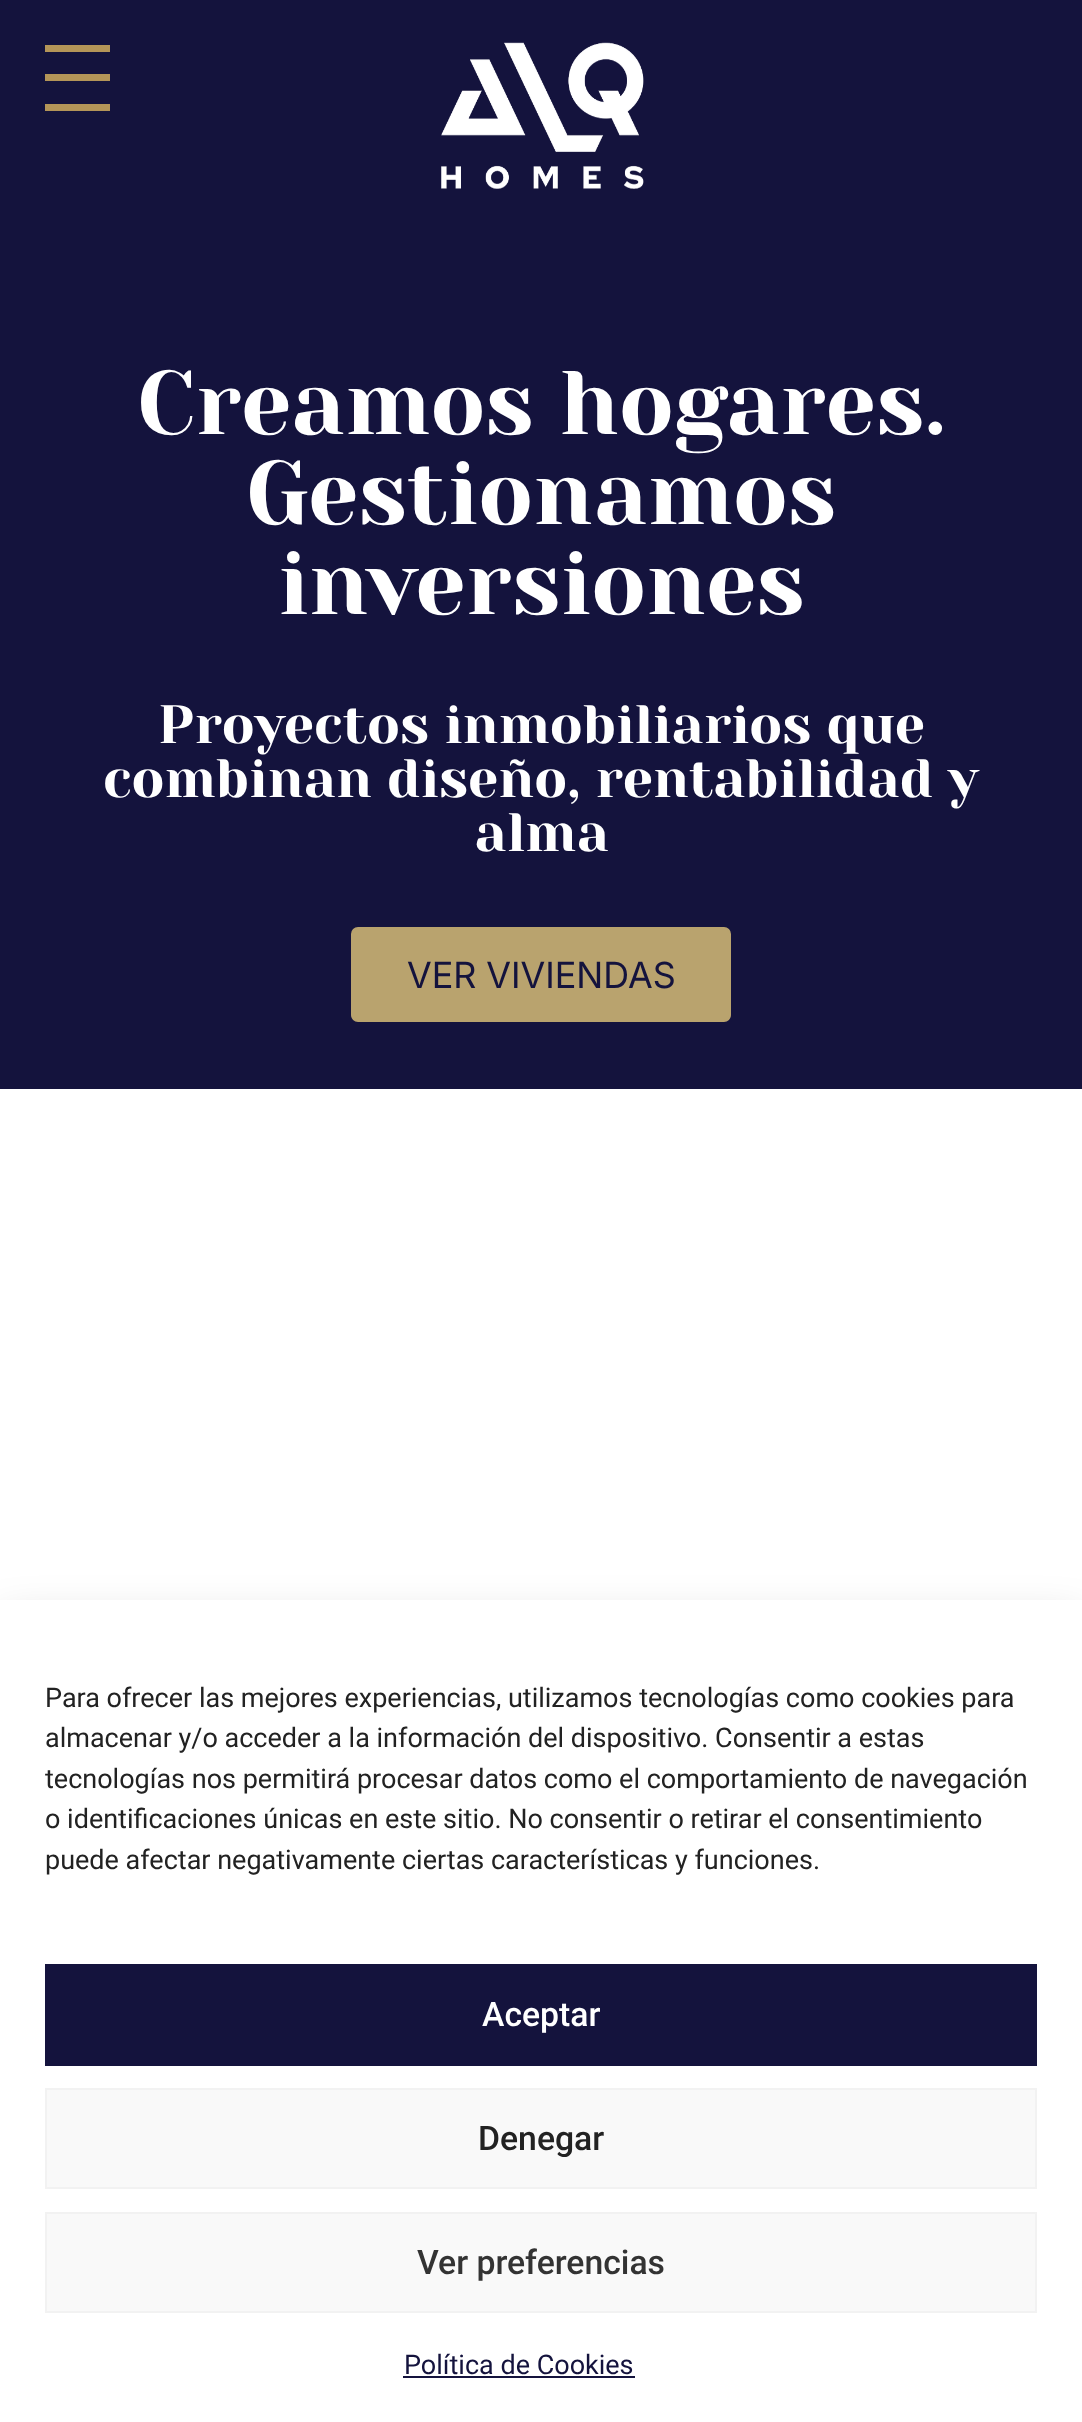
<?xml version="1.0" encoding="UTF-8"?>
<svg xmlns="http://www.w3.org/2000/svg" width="1082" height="2422">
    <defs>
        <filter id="blur1" x="-50%" y="-200%" width="200%" height="500%"><feGaussianBlur stdDeviation="22.5"/></filter>
    </defs>
    <rect width="100%" height="100%" fill="#FFFFFF"/>
    <rect x="0" y="0" width="1082" height="1089" fill="#14133D"/>
    <rect x="45" y="45" width="65" height="7" fill="#B49558"/>
    <rect x="45" y="74" width="65" height="7" fill="#B49558"/>
    <rect x="45" y="104" width="65" height="7" fill="#B49558"/>
    <image x="441" y="42" width="203" height="147" href="img_01.png"/>
    <text x="137" y="434" font-family="Yeseva One" font-size="90" fill="#FFFFFF">Creamos hogares.</text>
    <text x="246" y="524" font-family="Yeseva One" font-size="90" fill="#FFFFFF">Gestionamos</text>
    <text x="278" y="614" font-family="Yeseva One" font-size="90" fill="#FFFFFF">inversiones</text>
    <text x="158" y="743" font-family="Yeseva One" font-size="54" fill="#FFFFFF">Proyectos inmobiliarios que</text>
    <text x="103" y="797" font-family="Yeseva One" font-size="54" fill="#FFFFFF">combinan diseño, rentabilidad y</text>
    <text x="474" y="851" font-family="Yeseva One" font-size="54" fill="#FFFFFF">alma</text>
    <rect x="352" y="928" width="378" height="93" rx="6" fill="#B9A36E" stroke="#B9A36E" stroke-width="2"/>
    <text x="407" y="988" font-family="Inter" font-size="36" fill="#14133D">VER VIVIENDAS</text>
    <rect x="0" y="1622" width="1082" height="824" fill="#000000" fill-opacity="0.19" filter="url(#blur1)"/>
    <rect x="0" y="1600" width="1082" height="822" fill="#FFFFFF"/>
    <text font-family="Roboto" font-size="27" fill="#222222">
        <tspan x="45" y="1707">Para ofrecer las mejores experiencias, utilizamos tecnologías como cookies para</tspan>
        <tspan x="45" y="1747">almacenar y/o acceder a la información del dispositivo. Consentir a estas</tspan>
        <tspan x="45" y="1788">tecnologías nos permitirá procesar datos como el comportamiento de navegación</tspan>
        <tspan x="45" y="1828">o identificaciones únicas en este sitio. No consentir o retirar el consentimiento</tspan>
        <tspan x="45" y="1869">puede afectar negativamente ciertas características y funciones.</tspan>
    </text>
    <rect x="45" y="1964" width="992" height="102" fill="#14133D"/>
    <text x="482" y="2026" font-family="Roboto" font-size="33.75" font-weight="500" fill="#FFFFFF">Aceptar</text>
    <rect x="46" y="2089" width="990" height="99" fill="#F9F9F9" stroke="#F2F2F2" stroke-width="2"/>
    <text x="478" y="2150" font-family="Roboto" font-size="33.75" font-weight="500" fill="#222222">Denegar</text>
    <rect x="46" y="2213" width="990" height="99" fill="#F9F9F9" stroke="#F2F2F2" stroke-width="2"/>
    <text x="417" y="2274" font-family="Roboto" font-size="33.75" font-weight="500" fill="#333333">Ver preferencias</text>
    <text x="404" y="2374" font-family="Roboto" font-size="27" fill="#14133D">Política de Cookies</text>
    <rect x="403" y="2376" width="232" height="2" fill="#14133D"/>
</svg>
